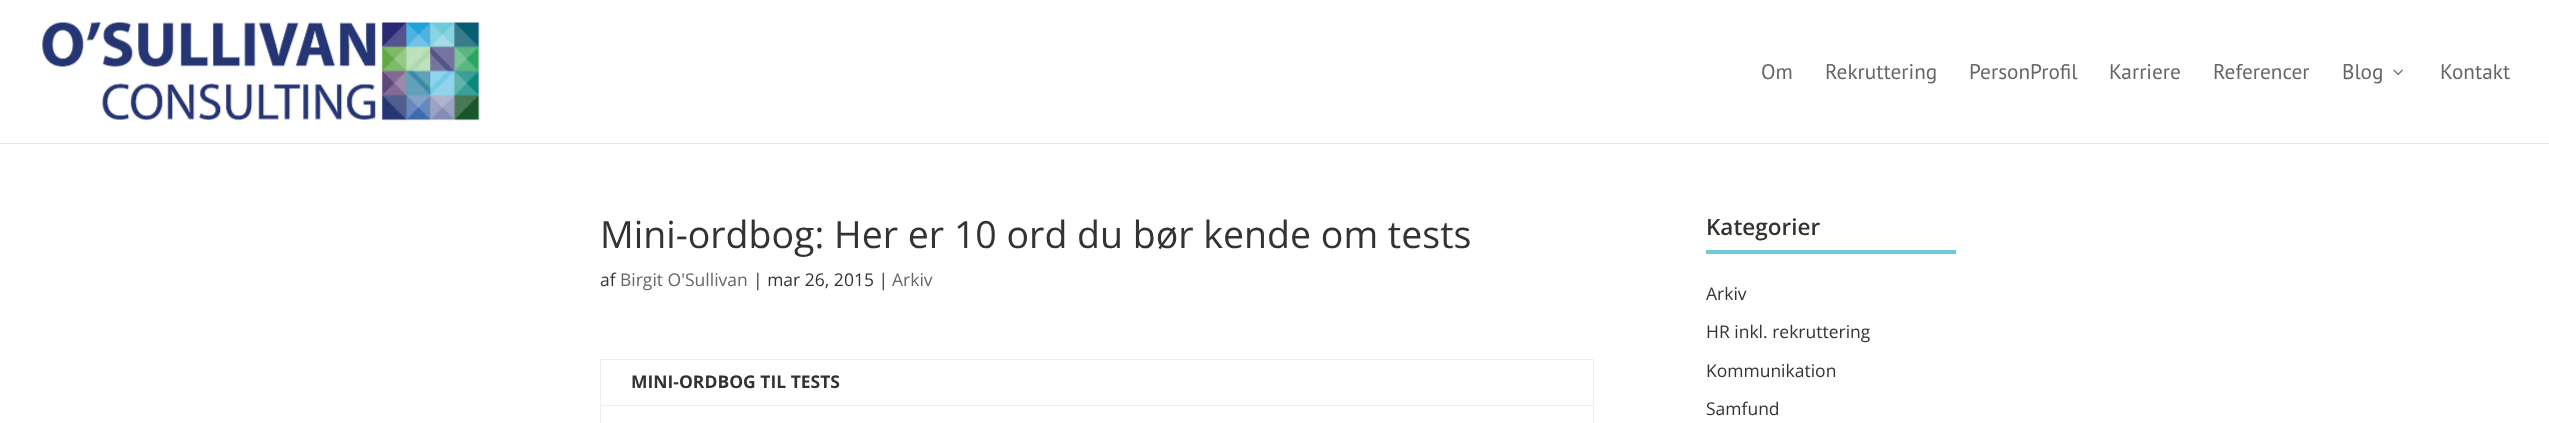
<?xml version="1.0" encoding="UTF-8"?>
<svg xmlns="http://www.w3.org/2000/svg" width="2549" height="423">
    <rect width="100%" height="100%" fill="#FFFFFF"/>
    <rect x="0" y="143" width="2549" height="1" fill="#E6E6E6"/>
    <image x="42" y="22" width="438" height="99" href="img_01.png"/>
    <text x="1761" y="79" font-family="PT Sans" font-size="21.25" fill="#666666">Om</text>
    <text x="1825" y="79" font-family="PT Sans" font-size="21.25" fill="#666666">Rekruttering</text>
    <text x="1969" y="79" font-family="PT Sans" font-size="21.25" fill="#666666">PersonProfil</text>
    <text x="2109" y="79" font-family="PT Sans" font-size="21.25" fill="#666666">Karriere</text>
    <text x="2213" y="79" font-family="PT Sans" font-size="21.25" fill="#666666">Referencer</text>
    <text x="2342" y="79" font-family="PT Sans" font-size="21.25" fill="#666666">Blog</text>
    <image x="2393" y="69" width="10" height="6" href="img_02.png"/>
    <text x="2440" y="79" font-family="PT Sans" font-size="21.25" fill="#666666">Kontakt</text>
    <text x="600" y="248" font-family="Open Sans" font-size="37.5" fill="#333333">Mini-ordbog: Her er 10 ord du bør kende om tests</text>
    <text x="600" y="286" font-family="Open Sans" font-size="17.5" fill="#333333">af</text>
    <text x="620" y="286" font-family="Open Sans" font-size="17.5" fill="#666666">Birgit O'Sullivan</text>
    <text x="753" y="286" font-family="Open Sans" font-size="17.5" fill="#333333">| mar 26, 2015 |</text>
    <text x="892" y="286" font-family="Open Sans" font-size="17.5" fill="#666666">Arkiv</text>
    <rect x="600" y="359" width="994" height="1" fill="#EEEEEE"/>
    <rect x="1593" y="359" width="1" height="64" fill="#EEEEEE"/>
    <rect x="600" y="359" width="1" height="64" fill="#EEEEEE"/>
    <text x="631" y="388" font-family="Open Sans" font-size="17.5" font-weight="700" fill="#333333">MINI-ORDBOG TIL TESTS</text>
    <rect x="600" y="405" width="994" height="1" fill="#EEEEEE"/>
    <text x="1706" y="235" font-family="Open Sans" font-size="22.5" font-weight="600" fill="#333333">Kategorier</text>
    <rect x="1706" y="250" width="250" height="4" fill="#70CBDB"/>
    <text x="1706" y="300" font-family="Open Sans" font-size="17.5" fill="#333333">Arkiv</text>
    <text x="1706" y="338" font-family="Open Sans" font-size="17.5" fill="#333333">HR inkl. rekruttering</text>
    <text x="1706" y="377" font-family="Open Sans" font-size="17.5" fill="#333333">Kommunikation</text>
    <text x="1706" y="415" font-family="Open Sans" font-size="17.5" fill="#333333">Samfund</text>
</svg>
